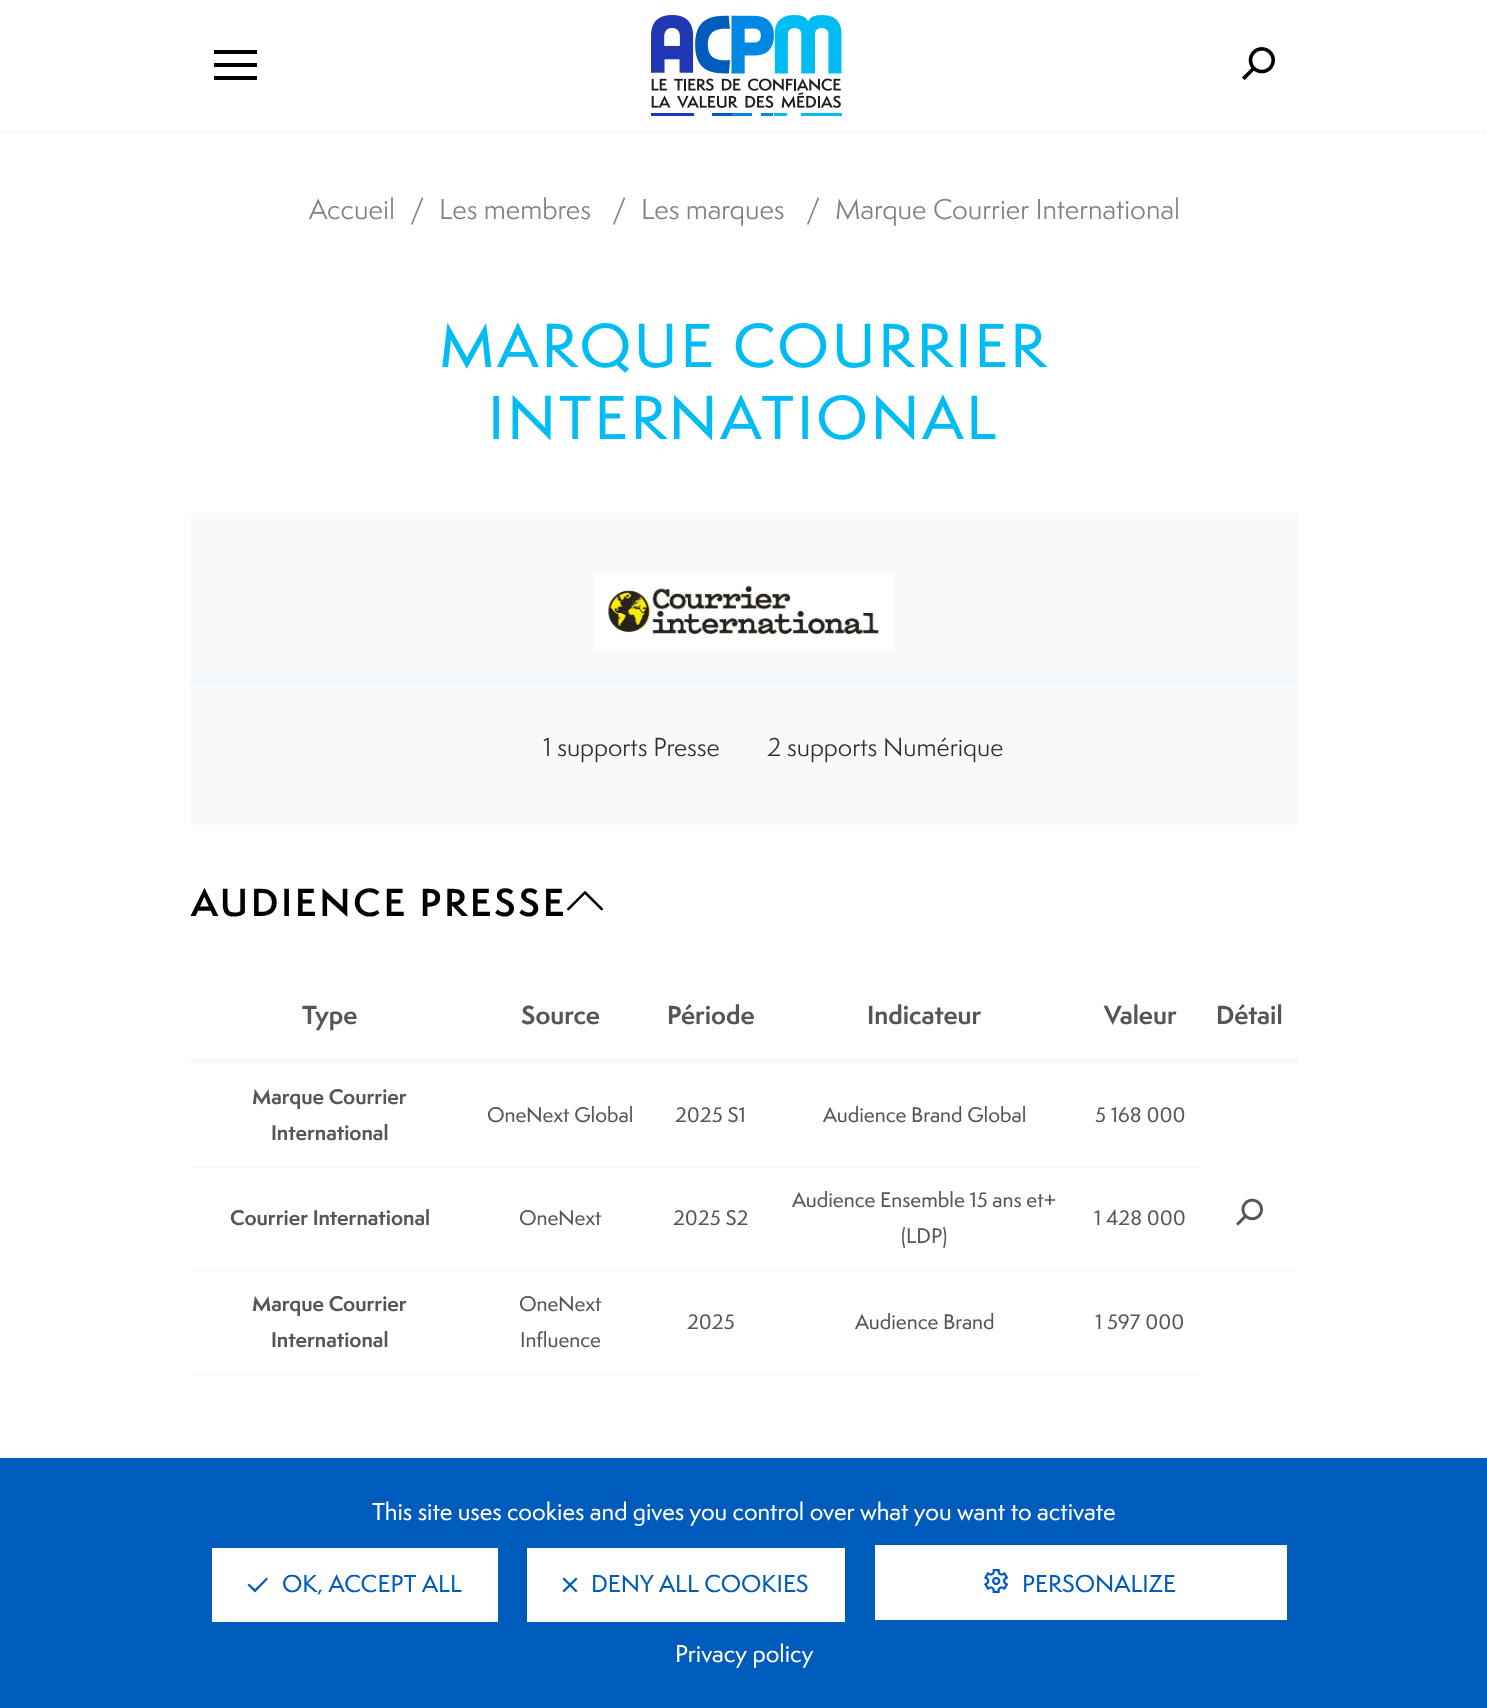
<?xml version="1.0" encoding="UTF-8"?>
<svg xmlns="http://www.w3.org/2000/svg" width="1487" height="1708">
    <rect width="100%" height="100%" fill="#FFFFFF"/>
    <rect x="0" y="131" width="1487" height="2" fill="#F8F9FA"/>
    <path d="M 214 63 H 257 V 67 H 214 Z M 214 76 H 257 V 80 H 214 Z M 214 50 H 257 V 54 H 214 Z" fill="#000000"/>
    <image x="651" y="15" width="191" height="101" href="img_01.png"/>
    <image x="1242" y="47" width="33" height="33" href="img_02.png"/>
    <text x="309" y="219" font-family="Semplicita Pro" font-size="26.4" fill="#818181">Accueil</text>
    <text x="410" y="219" font-family="Semplicita Pro" font-size="26.4" fill="#818181">/</text>
    <text x="439" y="219" font-family="Semplicita Pro" font-size="26.4" fill="#818181">Les membres</text>
    <text x="612" y="219" font-family="Semplicita Pro" font-size="26.4" fill="#818181">/</text>
    <text x="641" y="219" font-family="Semplicita Pro" font-size="26.4" fill="#818181">Les marques</text>
    <text x="806" y="219" font-family="Semplicita Pro" font-size="26.4" fill="#818181">/</text>
    <text x="835" y="219" font-family="Semplicita Pro" font-size="26.4" fill="#818181">Marque Courrier International</text>
    <text x="439" y="367" font-family="Semplicita Pro" font-size="57" font-weight="500" letter-spacing="3" fill="#00BCF4">MARQUE COURRIER</text>
    <text x="488" y="439" font-family="Semplicita Pro" font-size="57" font-weight="500" letter-spacing="3" fill="#00BCF4">INTERNATIONAL</text>
    <rect x="191" y="513" width="1107" height="312" fill="#F8F9FA"/>
    <image x="594" y="573" width="300" height="78" href="img_03.png"/>
    <rect x="191" y="681" width="1107" height="3" fill="#EFF7FF"/>
    <text x="543" y="756" font-family="Semplicita Pro" font-size="24" fill="#313031">1 supports Presse</text>
    <text x="767" y="756" font-family="Semplicita Pro" font-size="24" fill="#313031">2 supports Numérique</text>
    <text x="191" y="916" font-family="Semplicita Pro" font-size="36" font-weight="600" letter-spacing="3" fill="#000000">AUDIENCE PRESSE</text>
    <image x="567" y="891" width="36" height="20" href="img_04.png"/>
    <rect x="191" y="1058" width="1107" height="6" fill="#F8F9FA"/>
    <text x="302" y="1024" font-family="Semplicita Pro" font-size="24" font-weight="700" fill="#565656">Type</text>
    <text x="521" y="1024" font-family="Semplicita Pro" font-size="24" font-weight="700" fill="#565656">Source</text>
    <text x="667" y="1024" font-family="Semplicita Pro" font-size="24" font-weight="700" fill="#565656">Période</text>
    <text x="867" y="1024" font-family="Semplicita Pro" font-size="24" font-weight="700" fill="#565656">Indicateur</text>
    <text x="1104" y="1024" font-family="Semplicita Pro" font-size="24" font-weight="700" fill="#565656">Valeur</text>
    <text x="1216" y="1024" font-family="Semplicita Pro" font-size="24" font-weight="700" fill="#565656">Détail</text>
    <text x="252" y="1104" font-family="Semplicita Pro" font-size="19.5" font-weight="700" fill="#565656">Marque Courrier</text>
    <text x="271" y="1140" font-family="Semplicita Pro" font-size="19.5" font-weight="700" fill="#565656">International</text>
    <text x="487" y="1122" font-family="Semplicita Pro" font-size="19.5" font-weight="500" fill="#565656">OneNext Global</text>
    <text x="675" y="1122" font-family="Semplicita Pro" font-size="19.5" font-weight="500" fill="#565656">2025 S1</text>
    <text x="823" y="1122" font-family="Semplicita Pro" font-size="19.5" font-weight="500" fill="#565656">Audience Brand Global</text>
    <rect x="191" y="1166" width="1011" height="2" fill="#F8F9FA"/>
    <text x="1095" y="1122" font-family="Semplicita Pro" font-size="19.5" font-weight="500" fill="#565656">5 168 000</text>
    <text x="792" y="1207" font-family="Semplicita Pro" font-size="19.5" font-weight="500" fill="#565656">Audience Ensemble 15 ans et+</text>
    <text x="901" y="1243" font-family="Semplicita Pro" font-size="19.5" font-weight="500" fill="#565656">(LDP)</text>
    <rect x="191" y="1269" width="1107" height="2" fill="#F8F9FA"/>
    <image x="1236" y="1198" width="27" height="28" href="img_05.png"/>
    <text x="230" y="1225" font-family="Semplicita Pro" font-size="19.5" font-weight="700" fill="#565656">Courrier International</text>
    <text x="519" y="1225" font-family="Semplicita Pro" font-size="19.5" font-weight="500" fill="#565656">OneNext</text>
    <text x="673" y="1225" font-family="Semplicita Pro" font-size="19.5" font-weight="500" fill="#565656">2025 S2</text>
    <text x="1094" y="1225" font-family="Semplicita Pro" font-size="19.5" font-weight="500" fill="#565656">1 428 000</text>
    <text x="252" y="1311" font-family="Semplicita Pro" font-size="19.5" font-weight="700" fill="#565656">Marque Courrier</text>
    <text x="271" y="1347" font-family="Semplicita Pro" font-size="19.5" font-weight="700" fill="#565656">International</text>
    <text x="519" y="1311" font-family="Semplicita Pro" font-size="19.5" font-weight="500" fill="#565656">OneNext</text>
    <text x="520" y="1347" font-family="Semplicita Pro" font-size="19.5" font-weight="500" fill="#565656">Influence</text>
    <text x="687" y="1329" font-family="Semplicita Pro" font-size="19.5" font-weight="500" fill="#565656">2025</text>
    <text x="855" y="1329" font-family="Semplicita Pro" font-size="19.5" font-weight="500" fill="#565656">Audience Brand</text>
    <rect x="191" y="1373" width="1011" height="2" fill="#F8F9FA"/>
    <text x="1095" y="1329" font-family="Semplicita Pro" font-size="19.5" font-weight="500" fill="#565656">1 597 000</text>
    <rect x="0" y="1458" width="1487" height="250" fill="#005CBC"/>
    <text x="372" y="1520" font-family="Semplicita Pro" font-size="22.5" font-weight="500" fill="#FFFFFF">This site uses cookies and gives you control over what you want to activate</text>
    <rect x="212" y="1548" width="286" height="74" fill="#FFFFFF"/>
    <path d="M 255 1592.5 L 247.5 1585 L 249 1583.5 L 255 1589 L 266.5 1577.5 L 268 1579 Z" fill="#005CBC"/>
    <text x="282" y="1592" font-family="Semplicita Pro" font-size="22.5" font-weight="500" fill="#005CBC">OK, ACCEPT ALL</text>
    <rect x="527" y="1548" width="318" height="74" fill="#FFFFFF"/>
    <image x="562" y="1577" width="16" height="16" href="img_06.png"/>
    <text x="591" y="1592" font-family="Semplicita Pro" font-size="22.5" font-weight="500" fill="#005CBC">DENY ALL COOKIES</text>
    <rect x="875" y="1545" width="412" height="75" fill="#FFFFFF"/>
    <image x="984" y="1569" width="25" height="24" href="img_07.png"/>
    <text x="1022" y="1592" font-family="Semplicita Pro" font-size="22.5" font-weight="500" fill="#005CBC">PERSONALIZE</text>
    <text x="675" y="1662" font-family="Semplicita Pro" font-size="22.5" font-weight="500" fill="#FFFFFF">Privacy policy</text>
</svg>
